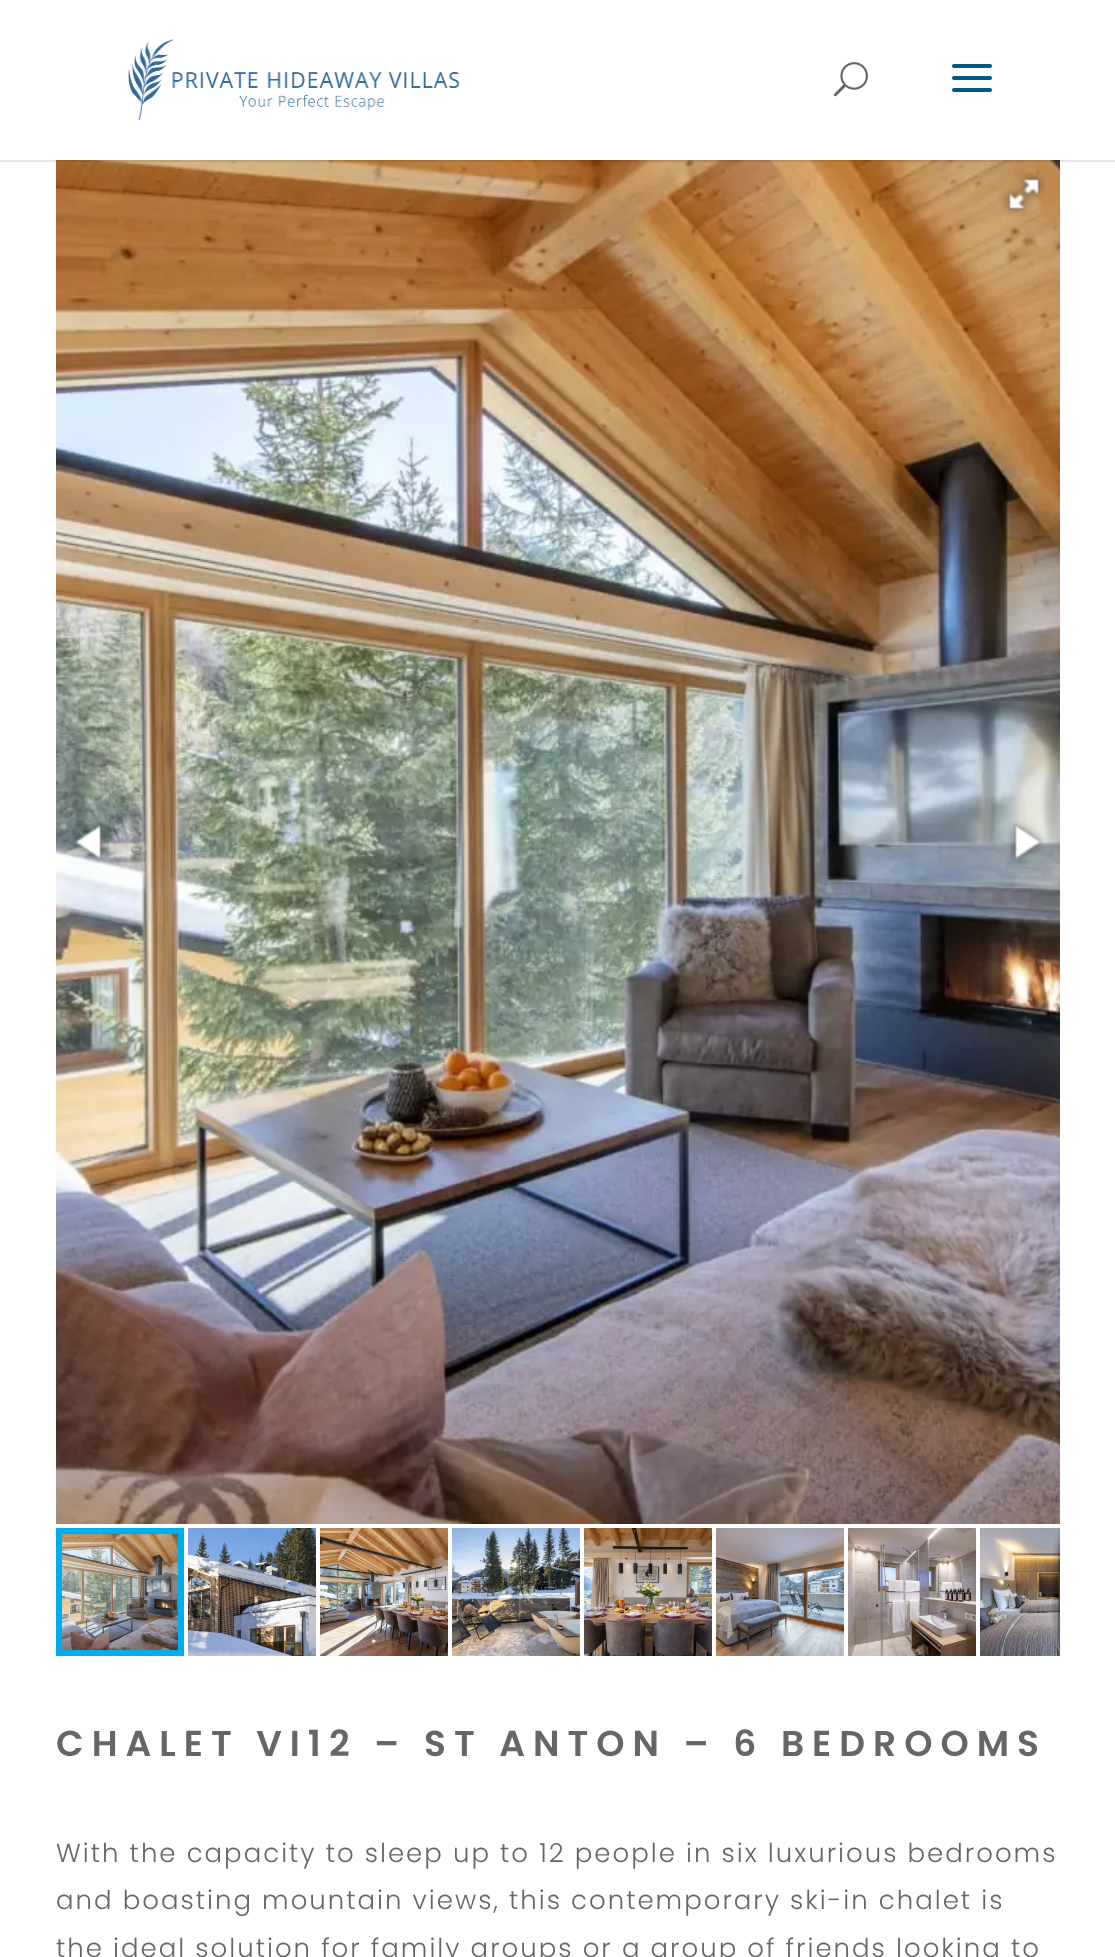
<?xml version="1.0" encoding="UTF-8"?>
<svg xmlns="http://www.w3.org/2000/svg" width="1115" height="1957">
    <defs>
        <radialGradient id="g1" gradientUnits="userSpaceOnUse" cx="0" cy="0" r="1" gradientTransform="matrix(10 0 0 68 1060 1592)"><stop offset="0" stop-color="#000000" stop-opacity="0.4"/><stop offset="1" stop-color="#000000" stop-opacity="0"/></radialGradient>
        <linearGradient id="g2" gradientUnits="userSpaceOnUse" x1="1059" y1="1524" x2="1059" y2="1660"><stop offset="0" stop-color="#000000" stop-opacity="0"/><stop offset="0.25" stop-color="#000000" stop-opacity="0.2"/><stop offset="0.75" stop-color="#000000" stop-opacity="0.3"/><stop offset="1" stop-color="#000000" stop-opacity="0"/></linearGradient>
    </defs>
    <rect width="100%" height="100%" fill="#FFFFFF"/>
    <image x="56" y="160" width="1004" height="1364" href="img_04.png"/>
    <rect x="0" y="160" width="1115" height="2" fill="#000000" fill-opacity="0.1"/>
    <image x="128" y="39" width="332" height="82" href="img_01.png"/>
    <image x="833" y="62" width="35" height="35" href="img_02.png"/>
    <image x="952" y="64" width="40" height="28" href="img_03.png"/>
    <image x="1002" y="172" width="44" height="44" href="img_05.png"/>
    <image x="72" y="821" width="37" height="43" href="img_06.png"/>
    <image x="1007" y="820" width="38" height="43" href="img_07.png"/>
    <image x="980" y="1528" width="80" height="128" href="img_14.png"/>
    <rect x="1051" y="1528" width="9" height="128" fill="url(#g1)"/>
    <rect x="1058" y="1524" width="2" height="136" fill="url(#g2)"/>
    <image x="62" y="1534" width="116" height="116" href="img_15.png"/>
    <rect x="59" y="1531" width="122" height="122" fill="none" stroke="#00AFEA" stroke-width="6"/>
    <image x="188" y="1528" width="128" height="128" href="img_08.png"/>
    <image x="320" y="1528" width="128" height="128" href="img_09.png"/>
    <image x="452" y="1528" width="128" height="128" href="img_10.png"/>
    <image x="584" y="1528" width="128" height="128" href="img_11.png"/>
    <image x="716" y="1528" width="128" height="128" href="img_12.png"/>
    <image x="848" y="1528" width="128" height="128" href="img_13.png"/>
    <text x="56" y="1756" font-family="Poppins" font-size="36" font-weight="600" letter-spacing="8" fill="#666666">CHALET VI12 – ST ANTON – 6 BEDROOMS</text>
    <text font-family="Poppins" font-size="26" font-weight="300" letter-spacing="2" fill="#666666">
        <tspan x="56" y="1862">With the capacity to sleep up to 12 people in six luxurious bedrooms</tspan>
        <tspan x="56" y="1909">and boasting mountain views, this contemporary ski-in chalet is</tspan>
        <tspan x="56" y="1957">the ideal solution for family groups or a group of friends looking to</tspan>
    </text>
</svg>
